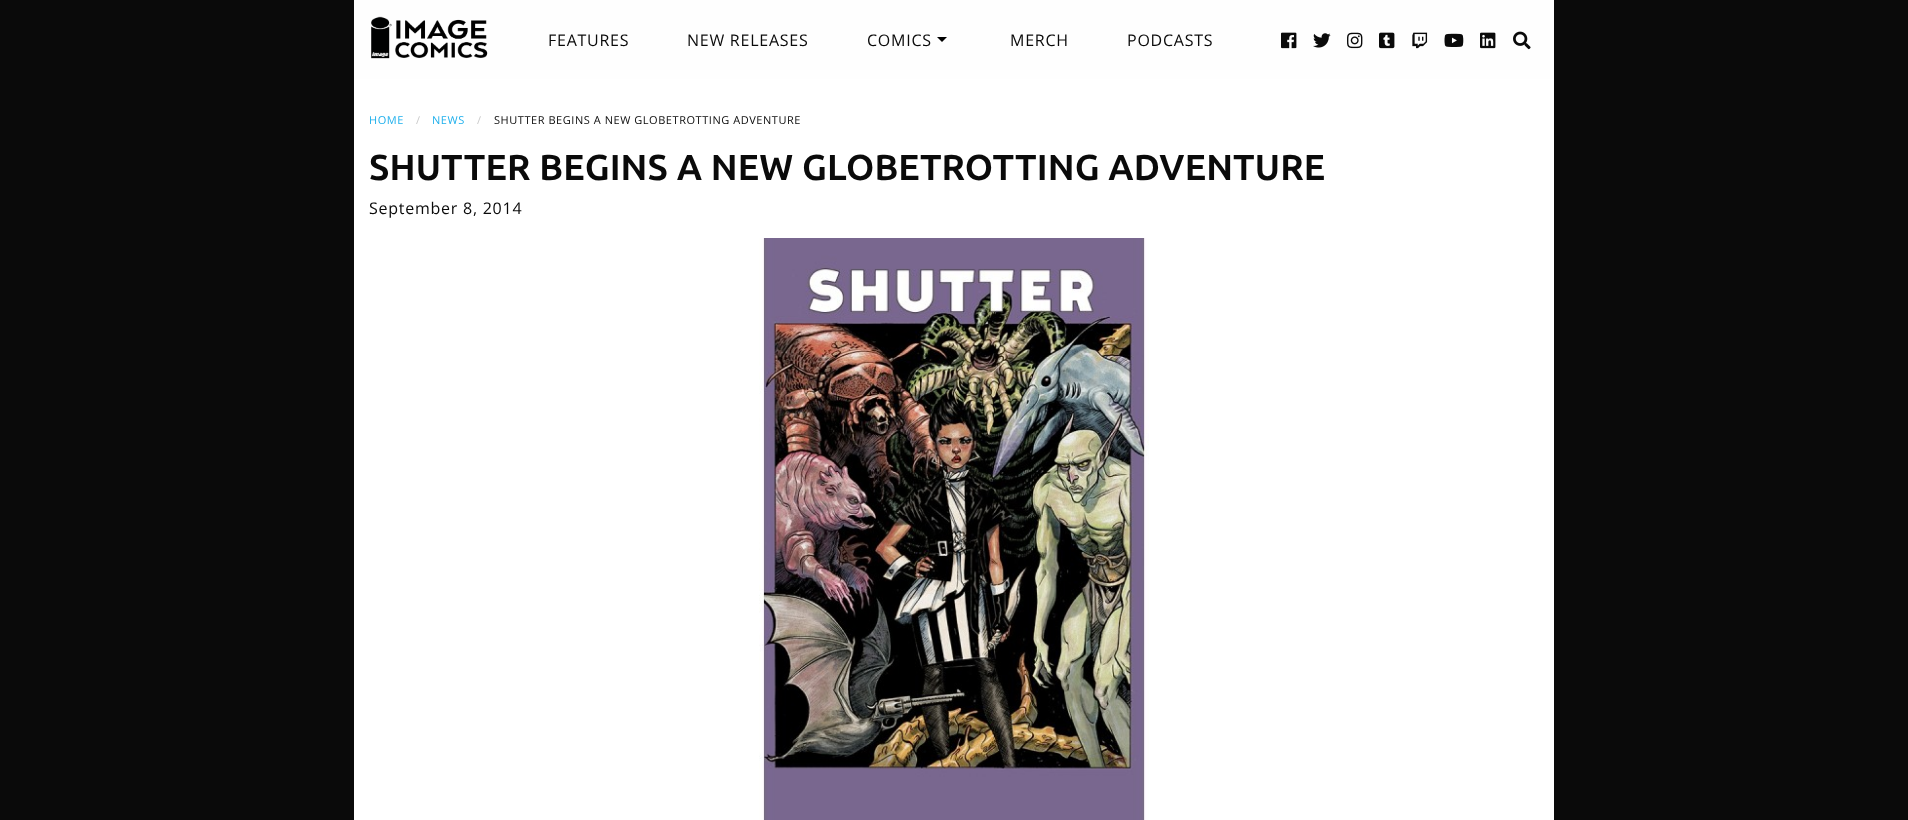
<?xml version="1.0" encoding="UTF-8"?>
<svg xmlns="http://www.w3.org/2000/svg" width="1908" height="820">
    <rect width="100%" height="100%" fill="#0A0A0A"/>
    <rect x="354" y="0" width="1200" height="79" fill="#FEFEFE"/>
    <image x="371" y="16" width="117" height="43" href="img_01.png"/>
    <text x="548" y="46" font-family="Open Sans" font-size="16" letter-spacing="0.75" fill="#0A0A0A">FEATURES</text>
    <text x="687" y="46" font-family="Open Sans" font-size="16" letter-spacing="0.75" fill="#0A0A0A">NEW RELEASES</text>
    <text x="867" y="46" font-family="Open Sans" font-size="16" letter-spacing="0.75" fill="#0A0A0A">COMICS</text>
    <path d="M 937 37 H 947 L 942 42 Z" fill="#000000"/>
    <text x="1010" y="46" font-family="Open Sans" font-size="16" letter-spacing="0.75" fill="#0A0A0A">MERCH</text>
    <text x="1127" y="46" font-family="Open Sans" font-size="16" letter-spacing="0.75" fill="#0A0A0A">PODCASTS</text>
    <image x="1281" y="32" width="16" height="17" href="img_02.png"/>
    <image x="1313" y="33" width="18" height="15" href="img_03.png"/>
    <image x="1347" y="32" width="16" height="17" href="img_04.png"/>
    <image x="1379" y="32" width="16" height="17" href="img_05.png"/>
    <image x="1412" y="32" width="16" height="17" href="img_06.png"/>
    <image x="1444" y="33" width="20" height="14" href="img_07.png"/>
    <image x="1480" y="32" width="16" height="17" href="img_08.png"/>
    <image x="1513" y="31" width="18" height="19" href="img_09.png"/>
    <rect x="354" y="79" width="1200" height="741" fill="#FFFFFF"/>
    <text x="369" y="124" font-family="Open Sans" font-size="11" letter-spacing="0.55" fill="#1DAFEC">HOME</text>
    <text x="416" y="124" font-family="Open Sans" font-size="11" letter-spacing="0.55" fill="#CACACA">/</text>
    <text x="432" y="124" font-family="Open Sans" font-size="11" letter-spacing="0.55" fill="#1DAFEC">NEWS</text>
    <text x="477" y="124" font-family="Open Sans" font-size="11" letter-spacing="0.55" fill="#CACACA">/</text>
    <text x="494" y="124" font-family="Open Sans" font-size="11" letter-spacing="0.55" fill="#0A0A0A">SHUTTER BEGINS A NEW GLOBETROTTING ADVENTURE</text>
    <text x="369" y="180" font-family="Ubuntu" font-size="36" font-weight="700" letter-spacing="0.1" fill="#0A0A0A">SHUTTER BEGINS A NEW GLOBETROTTING ADVENTURE</text>
    <text x="369" y="214" font-family="Open Sans" font-size="16" letter-spacing="0.75" fill="#0A0A0A">September 8, 2014</text>
    <image x="759" y="238" width="390" height="582" href="img_10.png"/>
</svg>
